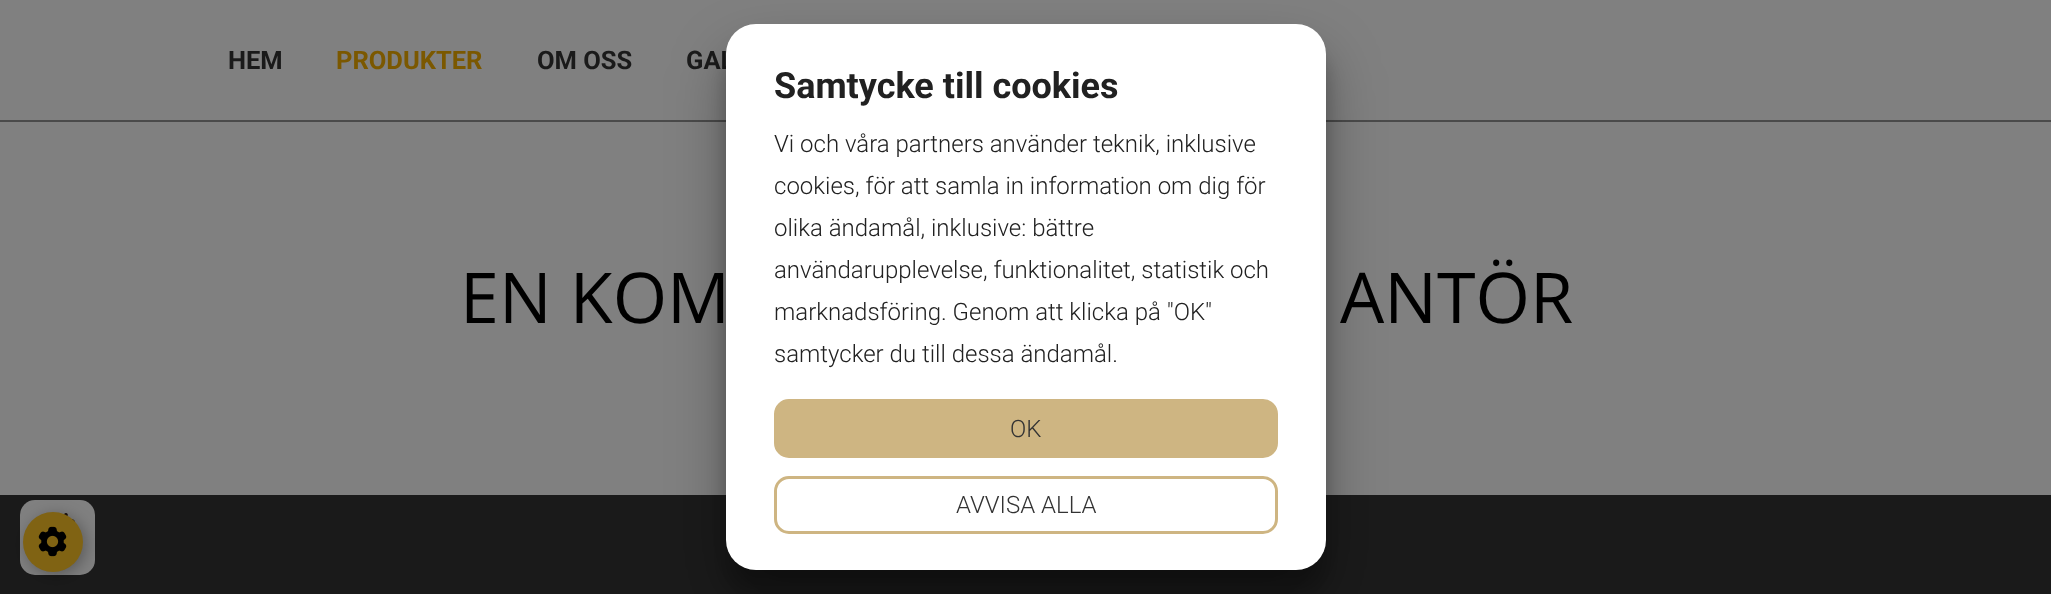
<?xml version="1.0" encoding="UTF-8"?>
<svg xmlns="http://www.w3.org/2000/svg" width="2051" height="594">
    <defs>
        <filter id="blur1" x="-50%" y="-200%" width="200%" height="500%"><feGaussianBlur stdDeviation="9"/></filter>
        <filter id="blur2" x="-50%" y="-200%" width="200%" height="500%"><feGaussianBlur stdDeviation="28.5"/></filter>
        <filter id="blur3" x="-50%" y="-200%" width="200%" height="500%"><feGaussianBlur stdDeviation="7.5"/></filter>
    </defs>
    <rect width="100%" height="100%" fill="#808080"/>
    <rect x="0" y="120" width="2051" height="2" fill="#4A4A4A"/>
    <text x="228" y="69" font-family="Roboto" font-size="25.5" font-weight="700" fill="#1A1A1A">HEM</text>
    <text x="336" y="69" font-family="Roboto" font-size="25.5" font-weight="700" fill="#7B5800">PRODUKTER</text>
    <text x="537" y="69" font-family="Roboto" font-size="25.5" font-weight="700" fill="#1A1A1A">OM OSS</text>
    <text x="686" y="69" font-family="Roboto" font-size="25.5" font-weight="700" fill="#1A1A1A">GAL</text>
    <text x="460" y="323" font-family="Open Sans" font-size="70" fill="#000000">EN KOM</text>
    <text x="1340" y="323" font-family="Open Sans" font-size="70" fill="#000000">ANTÖR</text>
    <rect x="0" y="495" width="2051" height="99" fill="#1A1A1A"/>
    <rect x="726" y="47" width="600" height="546" rx="30" fill="#000000" fill-opacity="0.22" filter="url(#blur1)"/>
    <rect x="726" y="53" width="600" height="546" rx="30" fill="#000000" fill-opacity="0.3" filter="url(#blur2)"/>
    <rect x="726" y="24" width="600" height="546" rx="30" fill="#FFFFFF"/>
    <text x="774" y="98" font-family="Roboto" font-size="36" font-weight="700" fill="#212121">Samtycke till cookies</text>
    <text font-family="Roboto" font-size="24" font-weight="300" fill="#212121">
        <tspan x="774" y="152">Vi och våra partners använder teknik, inklusive</tspan>
        <tspan x="774" y="194">cookies, för att samla in information om dig för</tspan>
        <tspan x="774" y="236">olika ändamål, inklusive: bättre</tspan>
        <tspan x="774" y="278">användarupplevelse, funktionalitet, statistik och</tspan>
        <tspan x="774" y="320">marknadsföring. Genom att klicka på "OK"</tspan>
        <tspan x="774" y="362">samtycker du till dessa ändamål.</tspan>
    </text>
    <rect x="775.5" y="400.5" width="501" height="56" rx="13.5" fill="#CEB582" stroke="#CEB582" stroke-width="3"/>
    <text x="1010" y="437" font-family="Roboto" font-size="24" font-weight="300" fill="#333333">OK</text>
    <rect x="775.5" y="477.5" width="501" height="55" rx="13.5" fill="none" stroke="#CEB582" stroke-width="3"/>
    <text x="956" y="513" font-family="Roboto" font-size="24" font-weight="300" fill="#333333">AVVISA ALLA</text>
    <rect x="20" y="500" width="75" height="75" rx="15" fill="#808080"/>
    <image x="64" y="513" width="11" height="9" href="img_02.png"/>
    <rect x="26" y="515" width="60" height="60" rx="30" fill="#000000" fill-opacity="0.3" filter="url(#blur3)"/>
    <circle cx="53" cy="542" r="30" fill="#806313"/>
    <image x="38" y="526" width="29" height="31" href="img_01.png"/>
</svg>
